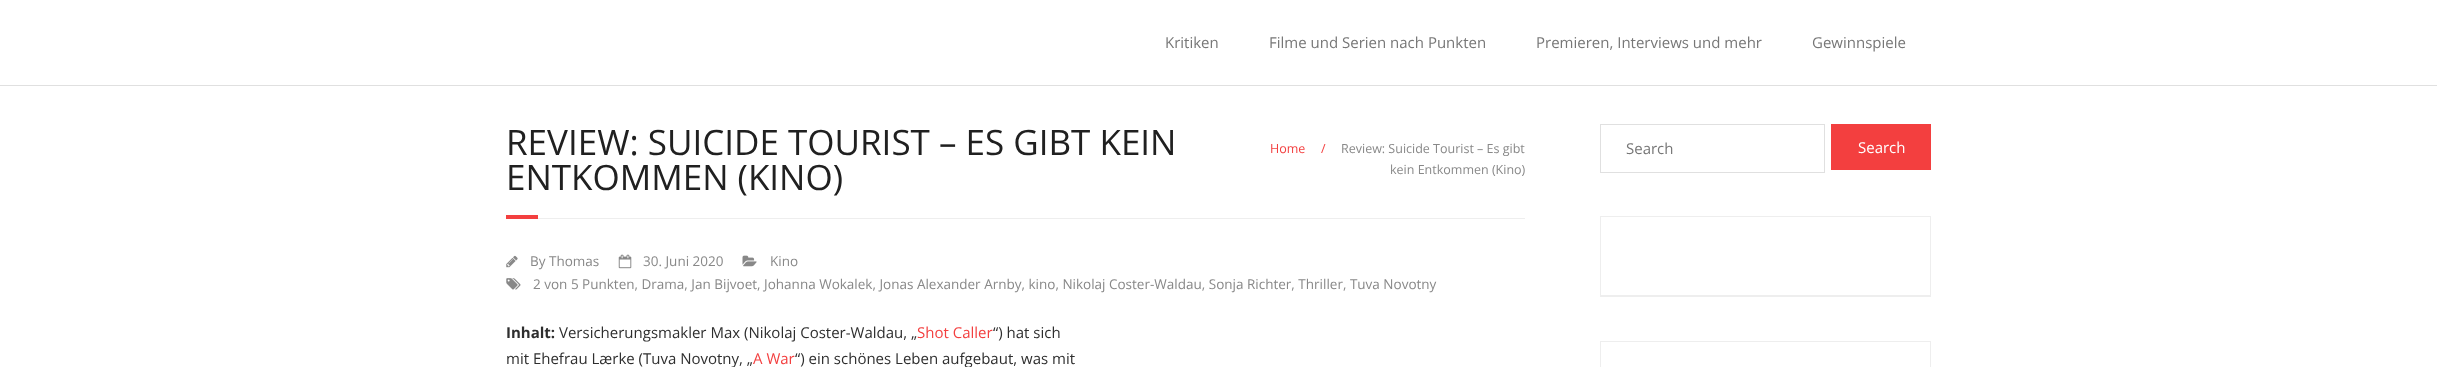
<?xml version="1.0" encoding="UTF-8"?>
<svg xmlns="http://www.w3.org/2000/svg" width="2437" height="367">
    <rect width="100%" height="100%" fill="#FFFFFF"/>
    <rect x="0" y="85" width="2437" height="1" fill="#E0E0E0"/>
    <text x="1165" y="48" font-family="Open Sans" font-size="15" fill="#777777">Kritiken</text>
    <text x="1269" y="48" font-family="Open Sans" font-size="15" fill="#777777">Filme und Serien nach Punkten</text>
    <text x="1536" y="48" font-family="Open Sans" font-size="15" fill="#777777">Premieren, Interviews und mehr</text>
    <text x="1812" y="48" font-family="Open Sans" font-size="15" fill="#777777">Gewinnspiele</text>
    <text font-family="Open Sans" font-size="35" fill="#202020">
        <tspan x="506" y="155">REVIEW: SUICIDE TOURIST – ES GIBT KEIN</tspan>
        <tspan x="506" y="190">ENTKOMMEN (KINO)</tspan>
    </text>
    <text x="1270" y="153" font-family="Open Sans" font-size="12.5" fill="#F33F3F">Home</text>
    <text x="1321" y="153" font-family="Open Sans" font-size="12.5" fill="#F33F3F">/</text>
    <text x="1341" y="153" font-family="Open Sans" font-size="12.5" fill="#888888">Review: Suicide Tourist – Es gibt</text>
    <text x="1390" y="174" font-family="Open Sans" font-size="12.5" fill="#888888">kein Entkommen (Kino)</text>
    <rect x="506" y="215" width="32" height="4" fill="#F33F3F"/>
    <rect x="538" y="218" width="987" height="1" fill="#EEEEEE"/>
    <image x="506" y="255" width="12" height="13" href="img_01.png"/>
    <text x="530" y="266" font-family="Open Sans" font-size="13.5" fill="#888888">By Thomas</text>
    <image x="618" y="254" width="14" height="15" href="img_02.png"/>
    <text x="643" y="266" font-family="Open Sans" font-size="13.5" fill="#888888">30. Juni 2020</text>
    <image x="742" y="255" width="15" height="12" href="img_03.png"/>
    <text x="770" y="266" font-family="Open Sans" font-size="13.5" fill="#888888">Kino</text>
    <image x="506" y="278" width="15" height="12" href="img_04.png"/>
    <text x="533" y="289" font-family="Open Sans" font-size="13.5" fill="#888888">2 von 5 Punkten, Drama, Jan Bijvoet, Johanna Wokalek, Jonas Alexander Arnby, kino, Nikolaj Coster-Waldau, Sonja Richter, Thriller, Tuva Novotny</text>
    <text x="506" y="338" font-family="Open Sans" font-size="15" font-weight="700" fill="#2E2E2E">Inhalt:</text>
    <text x="559" y="338" font-family="Open Sans" font-size="15" fill="#2E2E2E">Versicherungsmakler Max (Nikolaj Coster-Waldau, „</text>
    <text x="917" y="338" font-family="Open Sans" font-size="15" fill="#F33F3F">Shot Caller</text>
    <text x="993" y="338" font-family="Open Sans" font-size="15" fill="#2E2E2E">“) hat sich</text>
    <text x="506" y="364" font-family="Open Sans" font-size="15" fill="#2E2E2E">mit Ehefrau Lærke (Tuva Novotny, „</text>
    <text x="753" y="364" font-family="Open Sans" font-size="15" fill="#F33F3F">A War</text>
    <text x="795" y="364" font-family="Open Sans" font-size="15" fill="#2E2E2E">“) ein schönes Leben aufgebaut, was mit</text>
    <rect x="1600.5" y="124.5" width="224" height="48" fill="none" stroke="#E0E0E0"/>
    <text x="1626" y="154" font-family="Open Sans" font-size="15" fill="#777777">Search</text>
    <rect x="1831" y="124" width="100" height="46" fill="#F33F3F"/>
    <text x="1858" y="153" font-family="Open Sans" font-size="15" fill="#FFFFFF">Search</text>
    <rect x="1600" y="296" width="331" height="1" fill="#EEEEEE"/>
    <rect x="1600.5" y="216.5" width="330" height="79" fill="none" stroke="#EEEEEE"/>
    <rect x="1600.5" y="341.5" width="330" height="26" fill="none" stroke="#EEEEEE"/>
</svg>
